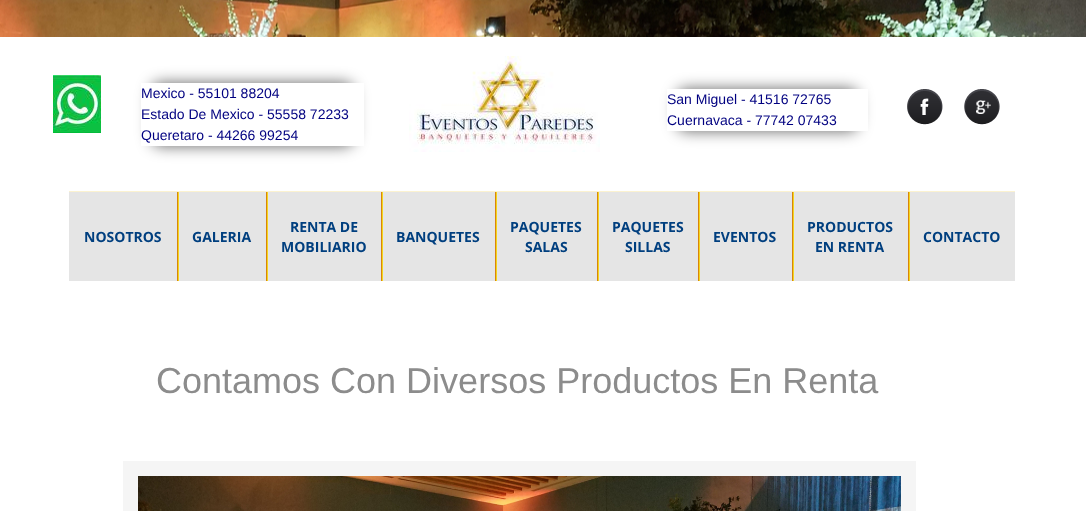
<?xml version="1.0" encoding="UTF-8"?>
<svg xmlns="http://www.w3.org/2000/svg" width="1086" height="511">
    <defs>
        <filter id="blur1" x="-50%" y="-200%" width="200%" height="500%"><feGaussianBlur stdDeviation="7.5"/></filter>
    </defs>
    <rect width="100%" height="100%" fill="#FFFFFF"/>
    <image x="0" y="0" width="1086" height="37" href="img_01.png"/>
    <image x="53" y="75" width="48" height="58" href="img_02.png"/>
    <rect x="151" y="83" width="203" height="63" rx="10" fill="#000000" fill-opacity="0.6" filter="url(#blur1)"/>
    <rect x="141" y="83" width="223" height="63" fill="#FFFFFF"/>
    <text font-family="Liberation Sans" font-size="14" fill="#000080">
        <tspan x="141" y="98">Mexico - 55101 88204</tspan>
        <tspan x="141" y="119">Estado De Mexico - 55558 72233</tspan>
        <tspan x="141" y="140">Queretaro - 44266 99254</tspan>
    </text>
    <image x="409" y="56" width="191" height="96" href="img_03.png"/>
    <rect x="677" y="89" width="181" height="42" rx="9" fill="#000000" fill-opacity="0.6" filter="url(#blur1)"/>
    <rect x="667" y="89" width="201" height="42" fill="#FFFFFF"/>
    <text font-family="Liberation Sans" font-size="14" fill="#000080">
        <tspan x="667" y="104">San Miguel - 41516 72765</tspan>
        <tspan x="667" y="125">Cuernavaca - 77742 07433</tspan>
    </text>
    <image x="907" y="89" width="36" height="36" href="img_04.png"/>
    <image x="964" y="89" width="36" height="36" href="img_05.png"/>
    <rect x="69" y="191" width="946" height="1" fill="#FBF2D0"/>
    <rect x="69" y="192" width="108" height="89" fill="#E5E5E5"/>
    <text x="84" y="242" font-family="Open Sans" font-size="14" font-weight="700" fill="#003F7F">NOSOTROS</text>
    <rect x="179" y="192" width="87" height="89" fill="#E5E5E5"/>
    <rect x="178" y="192" width="1" height="89" fill="#F3D71D"/>
    <rect x="177" y="192" width="1" height="89" fill="#D9850C"/>
    <text x="192" y="242" font-family="Open Sans" font-size="14" font-weight="700" fill="#003F7F">GALERIA</text>
    <rect x="268" y="192" width="113" height="89" fill="#E5E5E5"/>
    <rect x="267" y="192" width="1" height="89" fill="#F3D71D"/>
    <rect x="266" y="192" width="1" height="89" fill="#D9850C"/>
    <text x="290" y="232" font-family="Open Sans" font-size="14" font-weight="700" fill="#003F7F">RENTA DE</text>
    <text x="281" y="252" font-family="Open Sans" font-size="14" font-weight="700" fill="#003F7F">MOBILIARIO</text>
    <rect x="383" y="192" width="112" height="89" fill="#E5E5E5"/>
    <rect x="382" y="192" width="1" height="89" fill="#F3D71D"/>
    <rect x="381" y="192" width="1" height="89" fill="#D9850C"/>
    <text x="396" y="242" font-family="Open Sans" font-size="14" font-weight="700" fill="#003F7F">BANQUETES</text>
    <rect x="497" y="192" width="100" height="89" fill="#E5E5E5"/>
    <rect x="496" y="192" width="1" height="89" fill="#F3D71D"/>
    <rect x="495" y="192" width="1" height="89" fill="#D9850C"/>
    <text x="510" y="232" font-family="Open Sans" font-size="14" font-weight="700" fill="#003F7F">PAQUETES</text>
    <text x="525" y="252" font-family="Open Sans" font-size="14" font-weight="700" fill="#003F7F">SALAS</text>
    <rect x="599" y="192" width="99" height="89" fill="#E5E5E5"/>
    <rect x="598" y="192" width="1" height="89" fill="#F3D71D"/>
    <rect x="597" y="192" width="1" height="89" fill="#D9850C"/>
    <text x="612" y="232" font-family="Open Sans" font-size="14" font-weight="700" fill="#003F7F">PAQUETES</text>
    <text x="625" y="252" font-family="Open Sans" font-size="14" font-weight="700" fill="#003F7F">SILLAS</text>
    <rect x="700" y="192" width="92" height="89" fill="#E5E5E5"/>
    <rect x="699" y="192" width="1" height="89" fill="#F3D71D"/>
    <rect x="698" y="192" width="1" height="89" fill="#D9850C"/>
    <text x="713" y="242" font-family="Open Sans" font-size="14" font-weight="700" fill="#003F7F">EVENTOS</text>
    <rect x="794" y="192" width="114" height="89" fill="#E5E5E5"/>
    <rect x="793" y="192" width="1" height="89" fill="#F3D71D"/>
    <rect x="792" y="192" width="1" height="89" fill="#D9850C"/>
    <text x="807" y="232" font-family="Open Sans" font-size="14" font-weight="700" fill="#003F7F">PRODUCTOS</text>
    <text x="815" y="252" font-family="Open Sans" font-size="14" font-weight="700" fill="#003F7F">EN RENTA</text>
    <rect x="910" y="192" width="105" height="89" fill="#E5E5E5"/>
    <rect x="909" y="192" width="1" height="89" fill="#F3D71D"/>
    <rect x="908" y="192" width="1" height="89" fill="#D9850C"/>
    <text x="923" y="242" font-family="Open Sans" font-size="14" font-weight="700" fill="#003F7F">CONTACTO</text>
    <text x="156" y="393" font-family="Liberation Sans" font-size="36" fill="#8C8C8C">Contamos Con Diversos Productos En Renta</text>
    <rect x="130.5" y="468.5" width="778" height="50" fill="none" stroke="#F5F5F5" stroke-width="15"/>
    <image x="138" y="476" width="763" height="35" href="img_06.png"/>
</svg>
